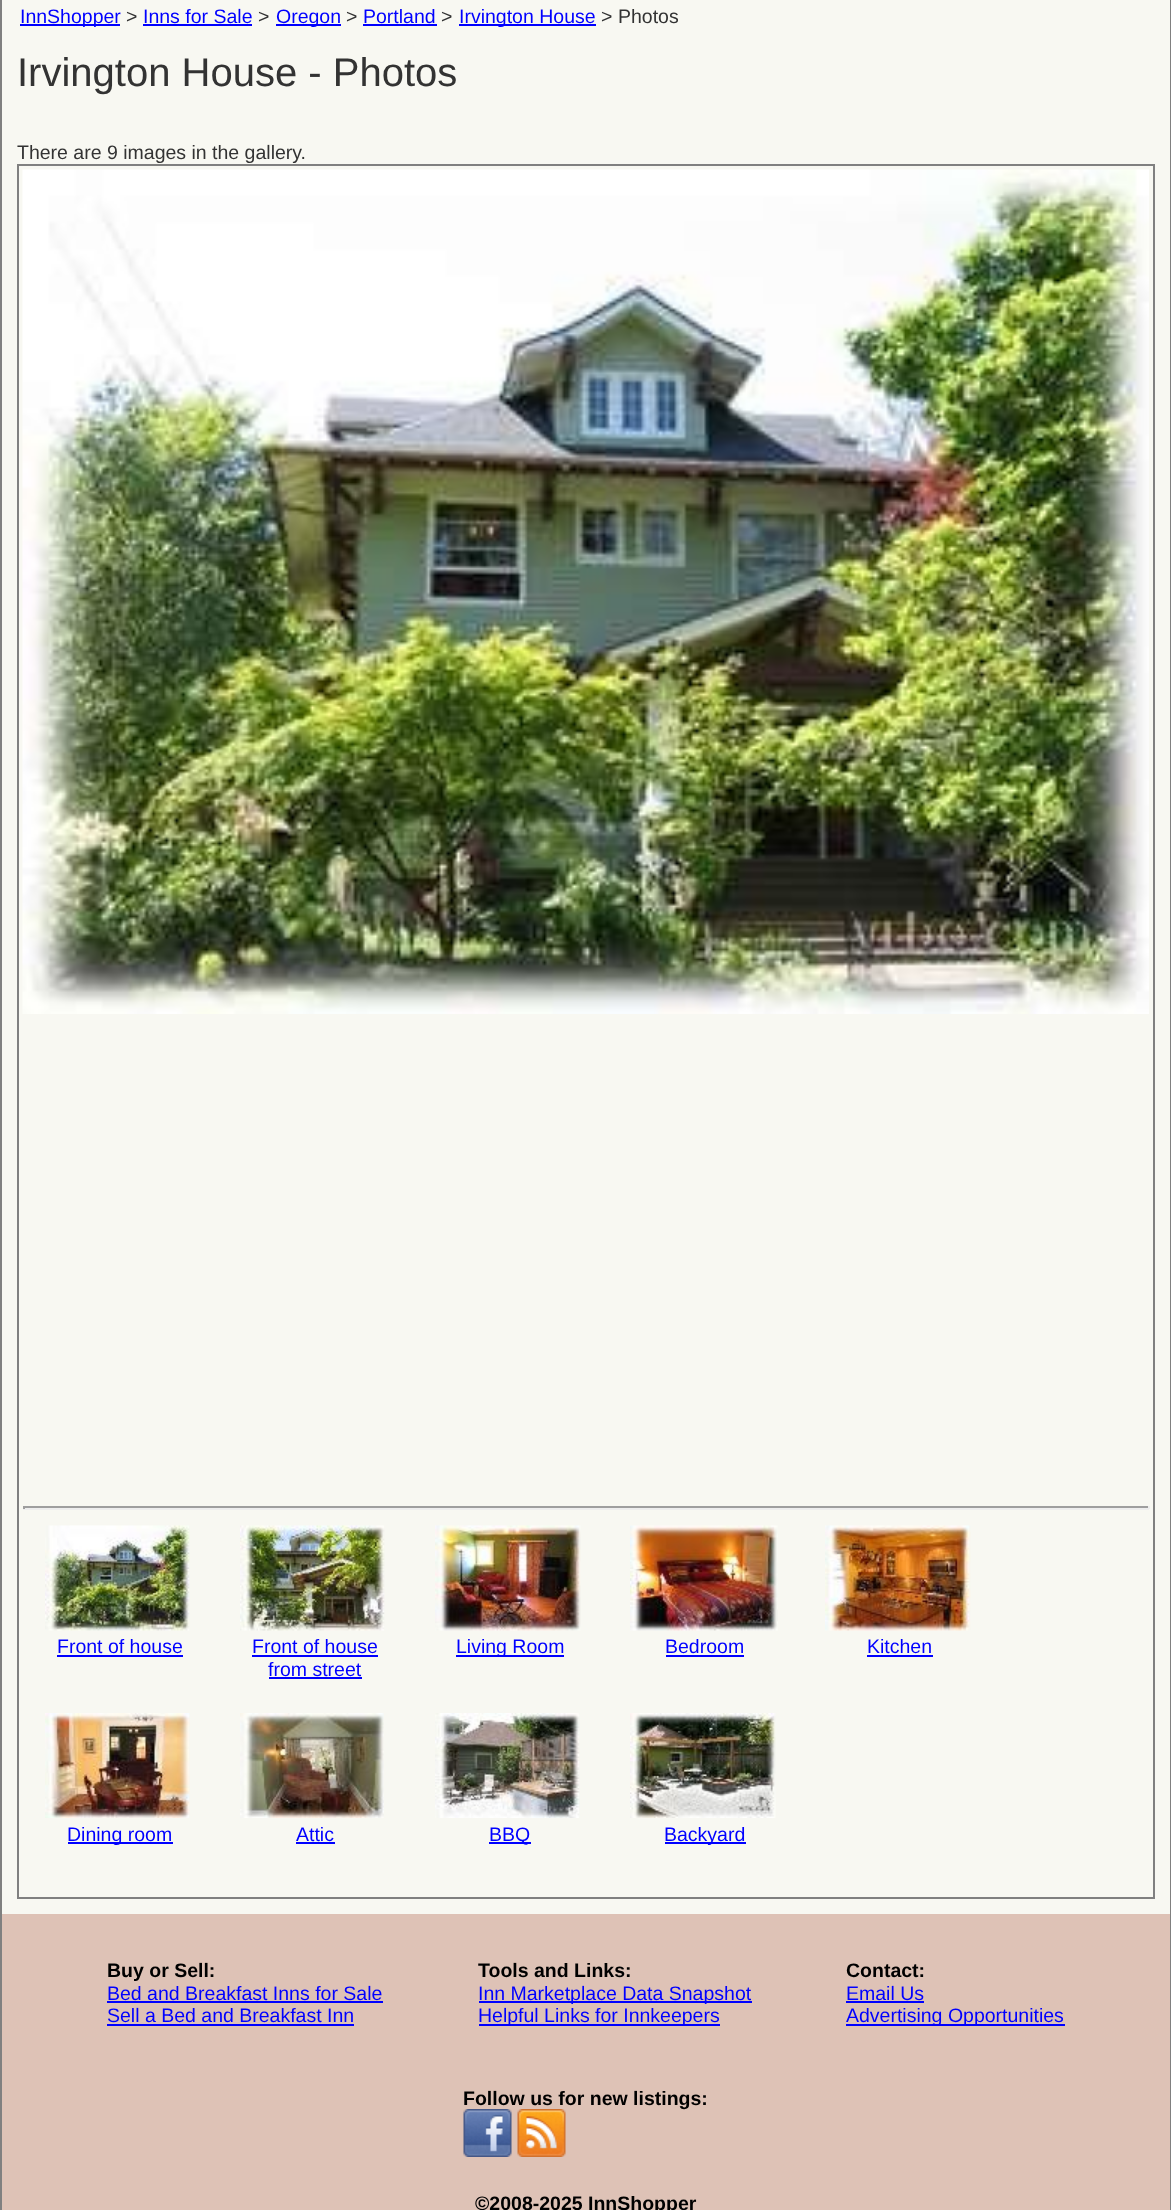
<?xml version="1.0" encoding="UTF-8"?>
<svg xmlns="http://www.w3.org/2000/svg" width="1171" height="2210">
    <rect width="100%" height="100%" fill="#F8F8F2"/>
    <rect x="1170" y="0" width="1" height="2210" fill="#808080"/>
    <rect x="0" y="0" width="2" height="2210" fill="#808080"/>
    <rect x="20" y="24" width="100" height="2" fill="#0000FF"/>
    <text x="20" y="23" font-family="Liberation Sans" font-size="19.5" fill="#0000FF">InnShopper</text>
    <text x="126" y="23" font-family="Liberation Sans" font-size="19.5" fill="#333333">&gt;</text>
    <text x="143" y="23" font-family="Liberation Sans" font-size="19.5" fill="#0000FF">Inns for Sale</text>
    <rect x="143" y="24" width="109" height="2" fill="#0000FF"/>
    <text x="258" y="23" font-family="Liberation Sans" font-size="19.5" fill="#333333">&gt;</text>
    <rect x="276" y="24" width="65" height="2" fill="#0000FF"/>
    <text x="276" y="23" font-family="Liberation Sans" font-size="19.5" fill="#0000FF">Oregon</text>
    <text x="346" y="23" font-family="Liberation Sans" font-size="19.5" fill="#333333">&gt;</text>
    <text x="363" y="23" font-family="Liberation Sans" font-size="19.5" fill="#0000FF">Portland</text>
    <rect x="363" y="24" width="74" height="2" fill="#0000FF"/>
    <text x="441" y="23" font-family="Liberation Sans" font-size="19.5" fill="#333333">&gt;</text>
    <rect x="459" y="24" width="137" height="2" fill="#0000FF"/>
    <text x="459" y="23" font-family="Liberation Sans" font-size="19.5" fill="#0000FF">Irvington House</text>
    <text x="601" y="23" font-family="Liberation Sans" font-size="19.5" fill="#333333">&gt;</text>
    <text x="618" y="23" font-family="Liberation Sans" font-size="19.5" fill="#333333">Photos</text>
    <text x="17" y="86" font-family="Liberation Sans" font-size="40" fill="#333333">Irvington House - Photos</text>
    <text x="17" y="159" font-family="Liberation Sans" font-size="19.5" fill="#333333">There are 9 images in the gallery.</text>
    <rect x="18" y="165" width="1136" height="1733" fill="none" stroke="#808080" stroke-width="2"/>
    <image x="22" y="169" width="1127" height="845" href="img_01.png"/>
    <rect x="23" y="1506" width="1126" height="2" fill="#9F9F9F"/>
    <rect x="1148" y="1506" width="2" height="3" fill="#EEEEEE"/>
    <rect x="23" y="1508" width="1126" height="2" fill="#EEEEEE"/>
    <rect x="23" y="1506" width="2" height="3" fill="#9F9F9F"/>
    <image x="45" y="1525" width="145" height="106" href="img_02.png"/>
    <text x="57" y="1653" font-family="Liberation Sans" font-size="19.5" fill="#0000FF">Front of house</text>
    <rect x="57" y="1655" width="126" height="2" fill="#0000FF"/>
    <image x="240" y="1525" width="145" height="106" href="img_03.png"/>
    <text x="252" y="1653" font-family="Liberation Sans" font-size="19.5" fill="#0000FF">Front of house</text>
    <rect x="252" y="1655" width="126" height="2" fill="#0000FF"/>
    <text x="268" y="1676" font-family="Liberation Sans" font-size="19.5" fill="#0000FF">from street</text>
    <rect x="269" y="1677" width="93" height="2" fill="#0000FF"/>
    <image x="435" y="1525" width="146" height="106" href="img_04.png"/>
    <rect x="456" y="1655" width="108" height="2" fill="#0000FF"/>
    <text x="456" y="1653" font-family="Liberation Sans" font-size="19.5" fill="#0000FF">Living Room</text>
    <image x="630" y="1525" width="148" height="106" href="img_05.png"/>
    <text x="665" y="1653" font-family="Liberation Sans" font-size="19.5" fill="#0000FF">Bedroom</text>
    <rect x="666" y="1655" width="78" height="2" fill="#0000FF"/>
    <image x="825" y="1525" width="146" height="106" href="img_06.png"/>
    <text x="867" y="1653" font-family="Liberation Sans" font-size="19.5" fill="#0000FF">Kitchen</text>
    <rect x="867" y="1655" width="66" height="2" fill="#0000FF"/>
    <image x="45" y="1713" width="145" height="105" href="img_07.png"/>
    <rect x="68" y="1842" width="105" height="2" fill="#0000FF"/>
    <text x="67" y="1841" font-family="Liberation Sans" font-size="19.5" fill="#0000FF">Dining room</text>
    <image x="240" y="1713" width="144" height="105" href="img_08.png"/>
    <text x="296" y="1841" font-family="Liberation Sans" font-size="19.5" fill="#0000FF">Attic</text>
    <rect x="296" y="1842" width="39" height="2" fill="#0000FF"/>
    <image x="435" y="1713" width="145" height="105" href="img_09.png"/>
    <rect x="489" y="1842" width="42" height="2" fill="#0000FF"/>
    <text x="489" y="1841" font-family="Liberation Sans" font-size="19.5" fill="#0000FF">BBQ</text>
    <image x="630" y="1713" width="146" height="105" href="img_10.png"/>
    <rect x="665" y="1842" width="81" height="2" fill="#0000FF"/>
    <text x="664" y="1841" font-family="Liberation Sans" font-size="19.5" fill="#0000FF">Backyard</text>
    <rect x="2" y="1914" width="1168" height="296" fill="#DEC2B6"/>
    <text x="107" y="1977" font-family="Liberation Sans" font-size="19.5" font-weight="700" fill="#000000">Buy or Sell:</text>
    <text x="107" y="2000" font-family="Liberation Sans" font-size="19.5" fill="#0000FF">Bed and Breakfast Inns for Sale</text>
    <rect x="107" y="2001" width="276" height="2" fill="#0000FF"/>
    <text x="107" y="2022" font-family="Liberation Sans" font-size="19.5" fill="#0000FF">Sell a Bed and Breakfast Inn</text>
    <rect x="107" y="2024" width="247" height="2" fill="#0000FF"/>
    <text x="478" y="1977" font-family="Liberation Sans" font-size="19.5" font-weight="700" fill="#000000">Tools and Links:</text>
    <rect x="479" y="2001" width="273" height="2" fill="#0000FF"/>
    <text x="478" y="2000" font-family="Liberation Sans" font-size="19.5" fill="#0000FF">Inn Marketplace Data Snapshot</text>
    <rect x="479" y="2024" width="241" height="2" fill="#0000FF"/>
    <text x="478" y="2022" font-family="Liberation Sans" font-size="19.5" fill="#0000FF">Helpful Links for Innkeepers</text>
    <text x="846" y="1977" font-family="Liberation Sans" font-size="19.5" font-weight="700" fill="#000000">Contact:</text>
    <text x="846" y="2000" font-family="Liberation Sans" font-size="19.5" fill="#0000FF">Email Us</text>
    <rect x="846" y="2001" width="78" height="2" fill="#0000FF"/>
    <rect x="846" y="2024" width="219" height="2" fill="#0000FF"/>
    <text x="846" y="2022" font-family="Liberation Sans" font-size="19.5" fill="#0000FF">Advertising Opportunities</text>
    <text x="463" y="2105" font-family="Liberation Sans" font-size="19.5" font-weight="700" fill="#000000">Follow us for new listings:</text>
    <image x="463" y="2109" width="49" height="48" href="img_11.png"/>
    <image x="517" y="2109" width="49" height="48" href="img_12.png"/>
    <text x="475" y="2210" font-family="Liberation Sans" font-size="19.5" font-weight="700" fill="#000000">©2008-2025 InnShopper</text>
</svg>
